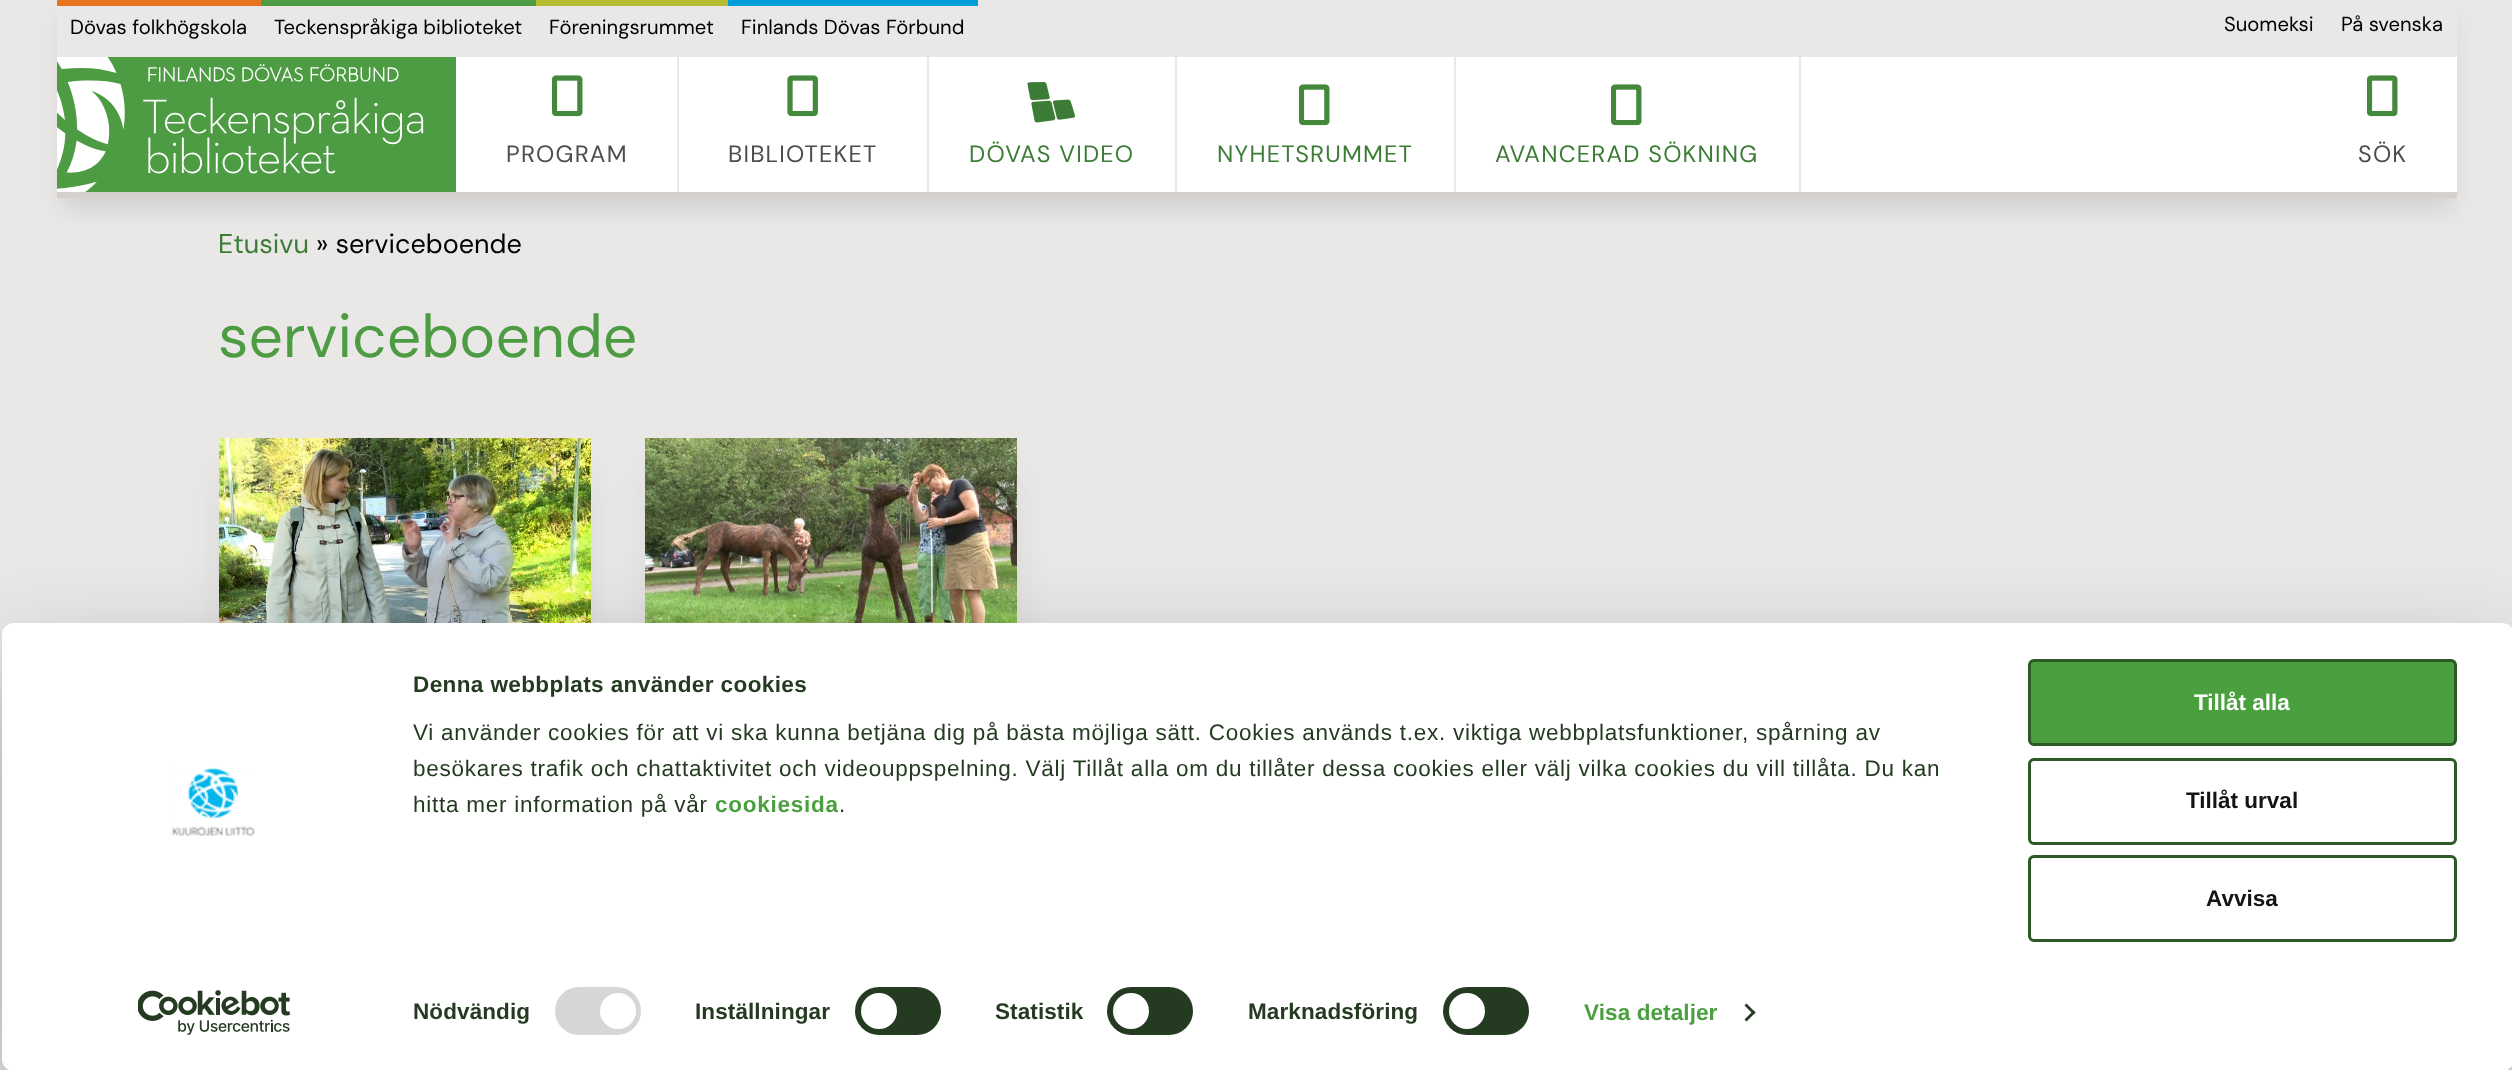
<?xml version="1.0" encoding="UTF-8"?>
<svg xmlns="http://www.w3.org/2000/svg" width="2512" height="1070">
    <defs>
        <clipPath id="clip1"><path d="M 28 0 H 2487 V 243 H 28 Z M 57 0 H 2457 V 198 H 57 Z" clip-rule="evenodd"/></clipPath>
        <filter id="blur1" x="-50%" y="-200%" width="200%" height="500%"><feGaussianBlur stdDeviation="11"/></filter>
        <filter id="blur2" x="-50%" y="-200%" width="200%" height="500%"><feGaussianBlur stdDeviation="19"/></filter>
        <clipPath id="clip2"><path d="M 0 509 H 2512 V 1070 H 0 Z M 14 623 H 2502 C 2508.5 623 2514 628.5 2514 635 V 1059 C 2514 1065.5 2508.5 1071 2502 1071 H 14 C 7.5 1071 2 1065.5 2 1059 V 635 C 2 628.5 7.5 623 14 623 Z" clip-rule="evenodd"/></clipPath>
        <filter id="blur3" x="-50%" y="-200%" width="200%" height="500%"><feGaussianBlur stdDeviation="52.5"/></filter>
    </defs>
    <rect width="100%" height="100%" fill="#EAE8E6"/>
    <g clip-path="url(#clip1)">
        <rect x="62" y="20" width="2391" height="189" fill="#000000" fill-opacity="0.1" filter="url(#blur1)"/>
    </g>
    <rect x="57" y="192" width="2400" height="6" fill="#D6D1CD"/>
    <rect x="57" y="0" width="204" height="6" fill="#E7751D"/>
    <text x="70" y="34" font-family="DM Sans" font-size="20.25" fill="#000000">Dövas folkhögskola</text>
    <rect x="261" y="0" width="275" height="6" fill="#4D9C44"/>
    <text x="274" y="34" font-family="DM Sans" font-size="20.25" fill="#000000">Teckenspråkiga biblioteket</text>
    <rect x="536" y="0" width="192" height="6" fill="#B5BE31"/>
    <text x="549" y="34" font-family="DM Sans" font-size="20.25" fill="#000000">Föreningsrummet</text>
    <rect x="728" y="0" width="250" height="6" fill="#009DDB"/>
    <text x="741" y="34" font-family="DM Sans" font-size="20.25" fill="#000000">Finlands Dövas Förbund</text>
    <text x="2224" y="31" font-family="DM Sans" font-size="20.25" fill="#000000">Suomeksi</text>
    <text x="2341" y="31" font-family="DM Sans" font-size="20.25" fill="#000000">På svenska</text>
    <rect x="57" y="57" width="399" height="135" fill="#4D9C44"/>
    <image x="57" y="57" width="367" height="135" href="img_01.png"/>
    <rect x="456" y="57" width="2001" height="135" fill="#FFFFFF"/>
    <rect x="677" y="57" width="2" height="135" fill="#EAE8E6"/>
    <image x="552" y="75" width="31" height="42" href="img_02.png"/>
    <image x="552" y="75" width="31" height="42" href="img_03.png"/>
    <text x="506" y="162" font-family="DM Sans" font-size="23.6" letter-spacing="1.2" fill="#504C49">PROGRAM</text>
    <rect x="927" y="57" width="2" height="135" fill="#EAE8E6"/>
    <image x="787" y="75" width="31" height="42" href="img_04.png"/>
    <image x="787" y="75" width="31" height="42" href="img_05.png"/>
    <text x="728" y="162" font-family="DM Sans" font-size="23.6" letter-spacing="1.2" fill="#504C49">BIBLIOTEKET</text>
    <rect x="1175" y="57" width="2" height="135" fill="#EAE8E6"/>
    <image x="1027" y="82" width="48" height="41" href="img_06.png"/>
    <text x="969" y="162" font-family="DM Sans" font-size="23.6" letter-spacing="1.2" fill="#3D7C36">DÖVAS VIDEO</text>
    <rect x="1454" y="57" width="2" height="135" fill="#EAE8E6"/>
    <image x="1299" y="84" width="31" height="42" href="img_02.png"/>
    <image x="1299" y="84" width="31" height="42" href="img_03.png"/>
    <text x="1217" y="162" font-family="DM Sans" font-size="23.6" letter-spacing="1.2" fill="#3D7C36">NYHETSRUMMET</text>
    <rect x="1799" y="57" width="2" height="135" fill="#EAE8E6"/>
    <image x="1611" y="84" width="31" height="42" href="img_02.png"/>
    <image x="1611" y="84" width="31" height="42" href="img_03.png"/>
    <text x="1495" y="162" font-family="DM Sans" font-size="23.6" letter-spacing="1.2" fill="#3D7C36">AVANCERAD SÖKNING</text>
    <image x="2367" y="75" width="31" height="42" href="img_02.png"/>
    <image x="2367" y="75" width="31" height="42" href="img_03.png"/>
    <text x="2358" y="162" font-family="DM Sans" font-size="23.6" letter-spacing="1.2" fill="#504C49">SÖK</text>
    <text x="218" y="253" font-family="DM Sans" font-size="27" fill="#3D7C36">Etusivu</text>
    <text x="316" y="253" font-family="DM Sans" font-size="27" fill="#000000">» serviceboende</text>
    <text x="218" y="357" font-family="DM Sans" font-size="60.75" fill="#4D9C44">serviceboende</text>
    <rect x="227" y="476" width="357" height="342" fill="#000000" fill-opacity="0.1" filter="url(#blur2)"/>
    <image x="219" y="438" width="372" height="185" href="img_07.png"/>
    <rect x="653" y="476" width="357" height="379" fill="#000000" fill-opacity="0.1" filter="url(#blur2)"/>
    <image x="645" y="438" width="372" height="185" href="img_08.png"/>
    <g clip-path="url(#clip2)">
        <rect x="2" y="668" width="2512" height="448" rx="12" fill="#000000" fill-opacity="0.3" filter="url(#blur3)"/>
    </g>
    <rect x="2" y="623" width="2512" height="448" rx="12" fill="#FFFFFF"/>
    <image x="171" y="767" width="84" height="69" href="img_09.png"/>
    <image x="138" y="990" width="153" height="45" href="img_10.png"/>
    <text x="413" y="692" font-family="Liberation Sans" font-size="22.5" font-weight="700" letter-spacing="0.4" fill="#243B21">Denna webbplats använder cookies</text>
    <text font-family="Liberation Sans" font-size="22.5" letter-spacing="0.75" fill="#243B21">
        <tspan x="413" y="740">Vi använder cookies för att vi ska kunna betjäna dig på bästa möjliga sätt. Cookies används t.ex. viktiga webbplatsfunktioner, spårning av</tspan>
        <tspan x="413" y="776">besökares trafik och chattaktivitet och videouppspelning. Välj Tillåt alla om du tillåter dessa cookies eller välj vilka cookies du vill tillåta. Du kan</tspan>
        <tspan x="413" y="812">hitta mer information på vår</tspan>
    </text>
    <text x="715" y="812" font-family="Liberation Sans" font-size="22.5" font-weight="700" letter-spacing="0.75" fill="#4A9F3E">cookiesida</text>
    <text x="839" y="812" font-family="Liberation Sans" font-size="22.5" letter-spacing="0.75" fill="#243B21">.</text>
    <text x="413" y="1019" font-family="Liberation Sans" font-size="22.5" font-weight="700" letter-spacing="0.1" fill="#243B21">Nödvändig</text>
    <rect x="555" y="987" width="86" height="48" rx="24" fill="#D6D6D6"/>
    <circle cx="618" cy="1011" r="18" fill="#FFFFFF"/>
    <text x="695" y="1019" font-family="Liberation Sans" font-size="22.5" font-weight="700" letter-spacing="0.1" fill="#243B21">Inställningar</text>
    <rect x="855" y="987" width="86" height="48" rx="24" fill="#243B21"/>
    <circle cx="879" cy="1011" r="18" fill="#FFFFFF"/>
    <text x="995" y="1019" font-family="Liberation Sans" font-size="22.5" font-weight="700" letter-spacing="0.1" fill="#243B21">Statistik</text>
    <rect x="1107" y="987" width="86" height="48" rx="24" fill="#243B21"/>
    <circle cx="1131" cy="1011" r="18" fill="#FFFFFF"/>
    <text x="1248" y="1019" font-family="Liberation Sans" font-size="22.5" font-weight="700" letter-spacing="0.1" fill="#243B21">Marknadsföring</text>
    <rect x="1443" y="987" width="86" height="48" rx="24" fill="#243B21"/>
    <circle cx="1467" cy="1011" r="18" fill="#FFFFFF"/>
    <text x="1584" y="1020" font-family="Liberation Sans" font-size="22.5" font-weight="700" letter-spacing="0.1" fill="#4A9F3E">Visa detaljer</text>
    <path d="M 1746.5 1003.5 L 1755.5 1012.5 L 1753.5 1014.5 L 1744.5 1005.5 Z" fill="#243B21"/>
    <path d="M 1753.5 1010.5 L 1755.5 1012.5 L 1746.5 1021.5 L 1744.5 1019.5 Z" fill="#243B21"/>
    <rect x="2029.5" y="660.5" width="426" height="84" rx="4.5" fill="#4A9F3E" stroke="#2D5927" stroke-width="3"/>
    <text x="2194" y="710" font-family="Liberation Sans" font-size="22.5" font-weight="700" fill="#FFFFFF">Tillåt alla</text>
    <rect x="2029.5" y="759.5" width="426" height="84" rx="4.5" fill="none" stroke="#2D5927" stroke-width="3"/>
    <text x="2186" y="808" font-family="Liberation Sans" font-size="22.5" font-weight="700" fill="#141414">Tillåt urval</text>
    <rect x="2029.5" y="856.5" width="426" height="84" rx="4.5" fill="none" stroke="#2D5927" stroke-width="3"/>
    <text x="2206" y="906" font-family="Liberation Sans" font-size="22.5" font-weight="700" fill="#141414">Avvisa</text>
</svg>
